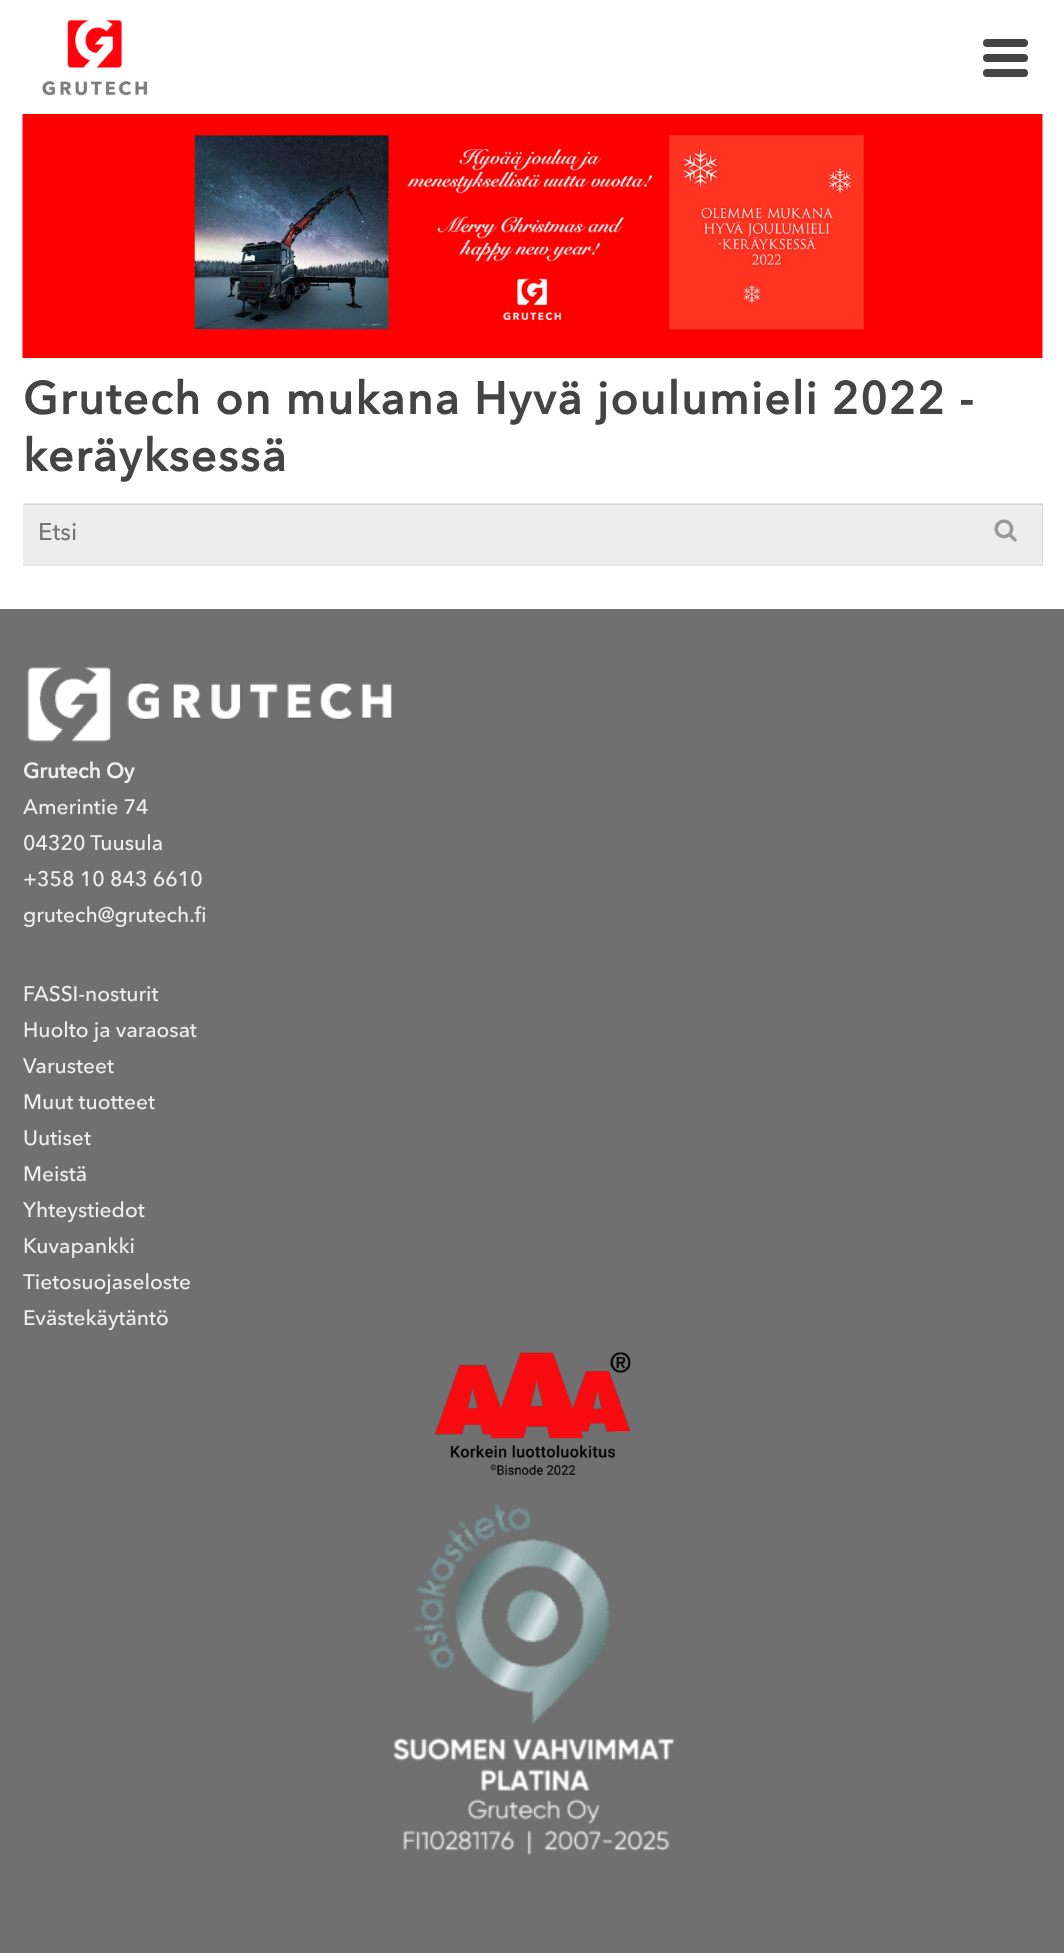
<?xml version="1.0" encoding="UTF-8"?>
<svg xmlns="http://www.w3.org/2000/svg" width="1064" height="1953">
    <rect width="100%" height="100%" fill="#FFFFFF"/>
    <image x="42" y="19" width="106" height="77" href="img_01.png"/>
    <rect x="983" y="39" width="45" height="8" rx="4" fill="#444444"/>
    <rect x="983" y="54" width="45" height="8" rx="4" fill="#444444"/>
    <rect x="983" y="69" width="45" height="8" rx="4" fill="#444444"/>
    <image x="22" y="114" width="1021" height="244" href="img_02.png"/>
    <text font-family="Avenir Next" font-size="45" font-weight="700" letter-spacing="1.8" fill="#444444">
        <tspan x="23" y="414">Grutech on mukana Hyvä joulumieli 2022 -</tspan>
        <tspan x="23" y="471">keräyksessä</tspan>
    </text>
    <rect x="23" y="503" width="1020" height="2" fill="#E6E6E6"/>
    <path d="M 23 564 V 566 H 1043 V 506 H 1042 V 564 Z" fill="#E6E6E6"/>
    <rect x="23" y="504" width="1020" height="60" fill="#000000" fill-opacity="0.07"/>
    <text x="38" y="540" font-family="Avenir Next" font-size="24" font-weight="500" fill="#757575">Etsi</text>
    <image x="994" y="519" width="23" height="23" href="img_03.png"/>
    <rect x="0" y="609" width="1064" height="1344" fill="#707070"/>
    <image x="27" y="667" width="365" height="75" href="img_04.png"/>
    <text x="23" y="778" font-family="Avenir Next" font-size="21" font-weight="700" fill="#EEEEEE">Grutech Oy</text>
    <text font-family="Avenir Next" font-size="21" font-weight="500" fill="#EEEEEE">
        <tspan x="23" y="814">Amerintie 74</tspan>
        <tspan x="23" y="850">04320 Tuusula</tspan>
        <tspan x="23" y="886">+358 10 843 6610</tspan>
        <tspan x="23" y="922">grutech@grutech.fi</tspan>
    </text>
    <text font-family="Avenir Next" font-size="21" font-weight="500" fill="#EEEEEE">
        <tspan x="23" y="1001">FASSI-nosturit</tspan>
        <tspan x="23" y="1037">Huolto ja varaosat</tspan>
        <tspan x="23" y="1073">Varusteet</tspan>
        <tspan x="23" y="1109">Muut tuotteet</tspan>
        <tspan x="23" y="1145">Uutiset</tspan>
        <tspan x="23" y="1181">Meistä</tspan>
        <tspan x="23" y="1217">Yhteystiedot</tspan>
        <tspan x="23" y="1253">Kuvapankki</tspan>
        <tspan x="23" y="1289">Tietosuojaseloste</tspan>
        <tspan x="23" y="1325">Evästekäytäntö</tspan>
    </text>
    <image x="435" y="1352" width="196" height="123" href="img_05.png"/>
    <image x="393" y="1504" width="281" height="352" href="img_06.png"/>
</svg>
